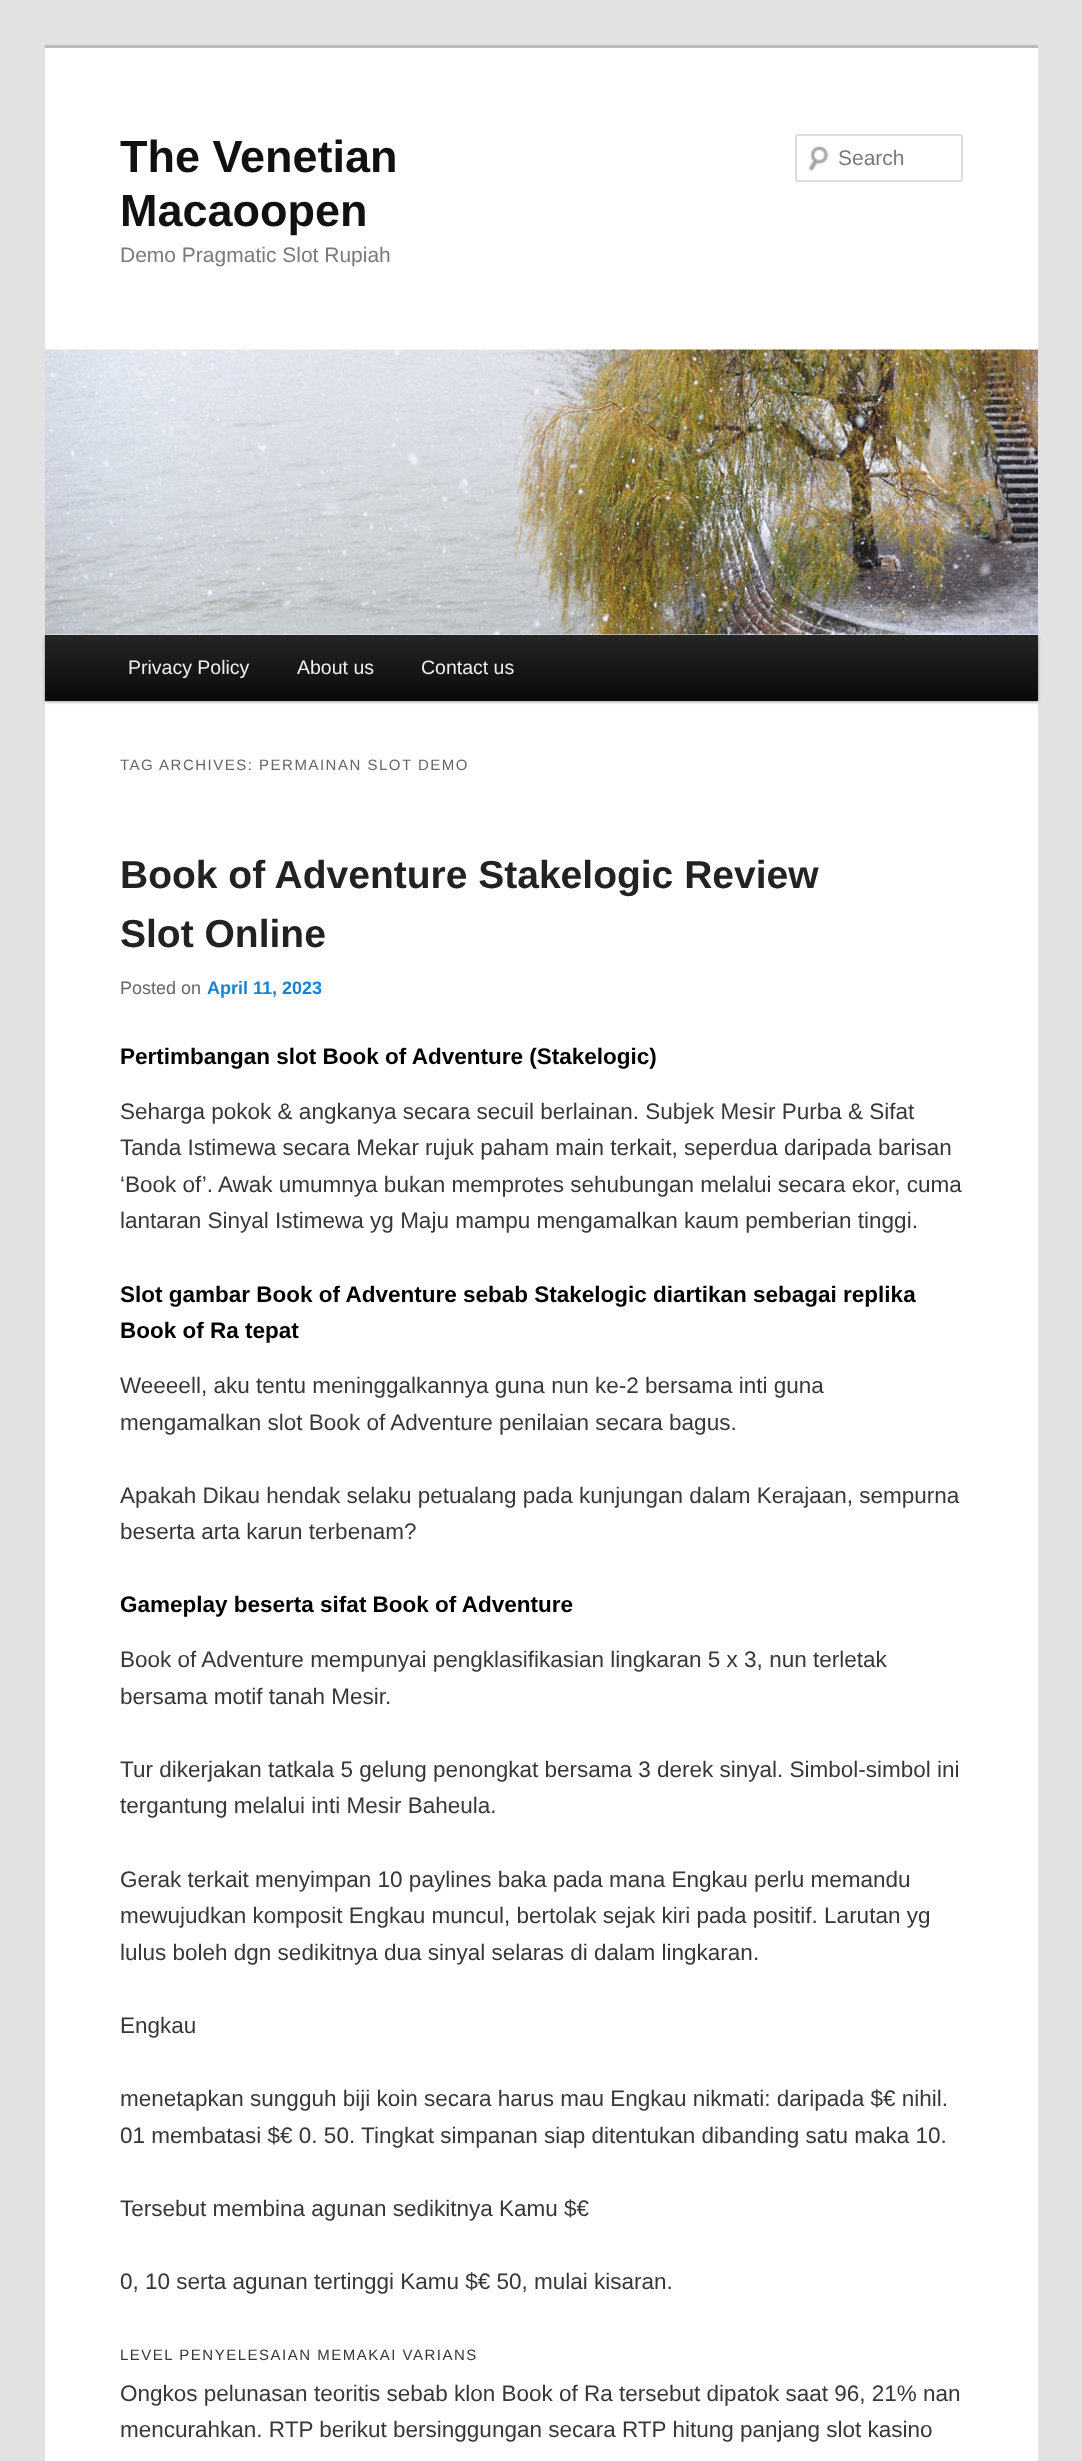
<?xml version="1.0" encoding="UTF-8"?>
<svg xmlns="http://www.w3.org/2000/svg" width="1082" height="2461">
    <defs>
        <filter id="blur1" x="-50%" y="-200%" width="200%" height="500%"><feGaussianBlur stdDeviation="1.5"/></filter>
        <linearGradient id="g1" gradientUnits="userSpaceOnUse" x1="542" y1="634" x2="542" y2="701"><stop offset="0" stop-color="#252525"/><stop offset="1" stop-color="#0A0A0A"/></linearGradient>
    </defs>
    <rect width="100%" height="100%" fill="#E2E2E2"/>
    <rect x="45" y="48" width="993" height="2413" fill="#FFFFFF"/>
    <rect x="45" y="45" width="993" height="3" fill="#BBBBBB"/>
    <text font-family="Liberation Sans" font-size="45" font-weight="700" fill="#111111">
        <tspan x="120" y="172">The Venetian</tspan>
        <tspan x="120" y="226">Macaoopen</tspan>
    </text>
    <text x="120" y="262" font-family="Liberation Sans" font-size="21" fill="#7A7A7A">Demo Pragmatic Slot Rupiah</text>
    <image x="808" y="145" width="21" height="27" href="img_01.png"/>
    <rect x="796" y="135" width="166" height="46" rx="2" fill="none" stroke="#DDDDDD" stroke-width="2"/>
    <text x="838" y="165" font-family="Liberation Sans" font-size="21" fill="#7A7A7A">Search</text>
    <rect x="45" y="636" width="993" height="66" fill="#000000" fill-opacity="0.4" filter="url(#blur1)"/>
    <image x="45" y="349" width="993" height="286" href="img_02.png"/>
    <rect x="45" y="635" width="993" height="66" fill="url(#g1)"/>
    <text x="128" y="674" font-family="Liberation Sans" font-size="19.5" fill="#EEEEEE">Privacy Policy</text>
    <text x="297" y="674" font-family="Liberation Sans" font-size="19.5" fill="#EEEEEE">About us</text>
    <text x="421" y="674" font-family="Liberation Sans" font-size="19.5" fill="#EEEEEE">Contact us</text>
    <text x="120" y="770" font-family="Liberation Sans" font-size="15" letter-spacing="1.5" fill="#666666">TAG ARCHIVES: PERMAINAN SLOT DEMO</text>
    <text font-family="Liberation Sans" font-size="39" font-weight="700" fill="#222222">
        <tspan x="120" y="888">Book of Adventure Stakelogic Review</tspan>
        <tspan x="120" y="947">Slot Online</tspan>
    </text>
    <text x="120" y="994" font-family="Liberation Sans" font-size="18" fill="#666666">Posted on</text>
    <text x="207" y="994" font-family="Liberation Sans" font-size="18" font-weight="700" fill="#1982D1">April 11, 2023</text>
    <text x="120" y="1064" font-family="Liberation Sans" font-size="22.5" font-weight="700" fill="#000000">Pertimbangan slot Book of Adventure (Stakelogic)</text>
    <text font-family="Liberation Sans" font-size="22.5" fill="#373737">
        <tspan x="120" y="1119">Seharga pokok &amp; angkanya secara secuil berlainan. Subjek Mesir Purba &amp; Sifat</tspan>
        <tspan x="120" y="1155">Tanda Istimewa secara Mekar rujuk paham main terkait, seperdua daripada barisan</tspan>
        <tspan x="120" y="1192">‘Book of’. Awak umumnya bukan memprotes sehubungan melalui secara ekor, cuma</tspan>
        <tspan x="120" y="1228">lantaran Sinyal Istimewa yg Maju mampu mengamalkan kaum pemberian tinggi.</tspan>
    </text>
    <text font-family="Liberation Sans" font-size="22.5" font-weight="700" fill="#000000">
        <tspan x="120" y="1302">Slot gambar Book of Adventure sebab Stakelogic diartikan sebagai replika</tspan>
        <tspan x="120" y="1338">Book of Ra tepat</tspan>
    </text>
    <text font-family="Liberation Sans" font-size="22.5" fill="#373737">
        <tspan x="120" y="1393">Weeeell, aku tentu meninggalkannya guna nun ke-2 bersama inti guna</tspan>
        <tspan x="120" y="1430">mengamalkan slot Book of Adventure penilaian secara bagus.</tspan>
    </text>
    <text font-family="Liberation Sans" font-size="22.5" fill="#373737">
        <tspan x="120" y="1503">Apakah Dikau hendak selaku petualang pada kunjungan dalam Kerajaan, sempurna</tspan>
        <tspan x="120" y="1539">beserta arta karun terbenam?</tspan>
    </text>
    <text x="120" y="1612" font-family="Liberation Sans" font-size="22.5" font-weight="700" fill="#000000">Gameplay beserta sifat Book of Adventure</text>
    <text font-family="Liberation Sans" font-size="22.5" fill="#373737">
        <tspan x="120" y="1667">Book of Adventure mempunyai pengklasifikasian lingkaran 5 x 3, nun terletak</tspan>
        <tspan x="120" y="1704">bersama motif tanah Mesir.</tspan>
    </text>
    <text font-family="Liberation Sans" font-size="22.5" fill="#373737">
        <tspan x="120" y="1777">Tur dikerjakan tatkala 5 gelung penongkat bersama 3 derek sinyal. Simbol-simbol ini</tspan>
        <tspan x="120" y="1813">tergantung melalui inti Mesir Baheula.</tspan>
    </text>
    <text font-family="Liberation Sans" font-size="22.5" fill="#373737">
        <tspan x="120" y="1887">Gerak terkait menyimpan 10 paylines baka pada mana Engkau perlu memandu</tspan>
        <tspan x="120" y="1923">mewujudkan komposit Engkau muncul, bertolak sejak kiri pada positif. Larutan yg</tspan>
        <tspan x="120" y="1960">lulus boleh dgn sedikitnya dua sinyal selaras di dalam lingkaran.</tspan>
    </text>
    <text x="120" y="2033" font-family="Liberation Sans" font-size="22.5" fill="#373737">Engkau</text>
    <text font-family="Liberation Sans" font-size="22.5" fill="#373737">
        <tspan x="120" y="2106">menetapkan sungguh biji koin secara harus mau Engkau nikmati: daripada $€ nihil.</tspan>
        <tspan x="120" y="2143">01 membatasi $€ 0. 50. Tingkat simpanan siap ditentukan dibanding satu maka 10.</tspan>
    </text>
    <text x="120" y="2216" font-family="Liberation Sans" font-size="22.5" fill="#373737">Tersebut membina agunan sedikitnya Kamu $€</text>
    <text x="120" y="2289" font-family="Liberation Sans" font-size="22.5" fill="#373737">0, 10 serta agunan tertinggi Kamu $€ 50, mulai kisaran.</text>
    <text x="120" y="2360" font-family="Liberation Sans" font-size="15" letter-spacing="1.5" fill="#373737">LEVEL PENYELESAIAN MEMAKAI VARIANS</text>
    <text font-family="Liberation Sans" font-size="22.5" fill="#373737">
        <tspan x="120" y="2401">Ongkos pelunasan teoritis sebab klon Book of Ra tersebut dipatok saat 96, 21% nan</tspan>
        <tspan x="120" y="2437">mencurahkan. RTP berikut bersinggungan secara RTP hitung panjang slot kasino</tspan>
    </text>
</svg>
